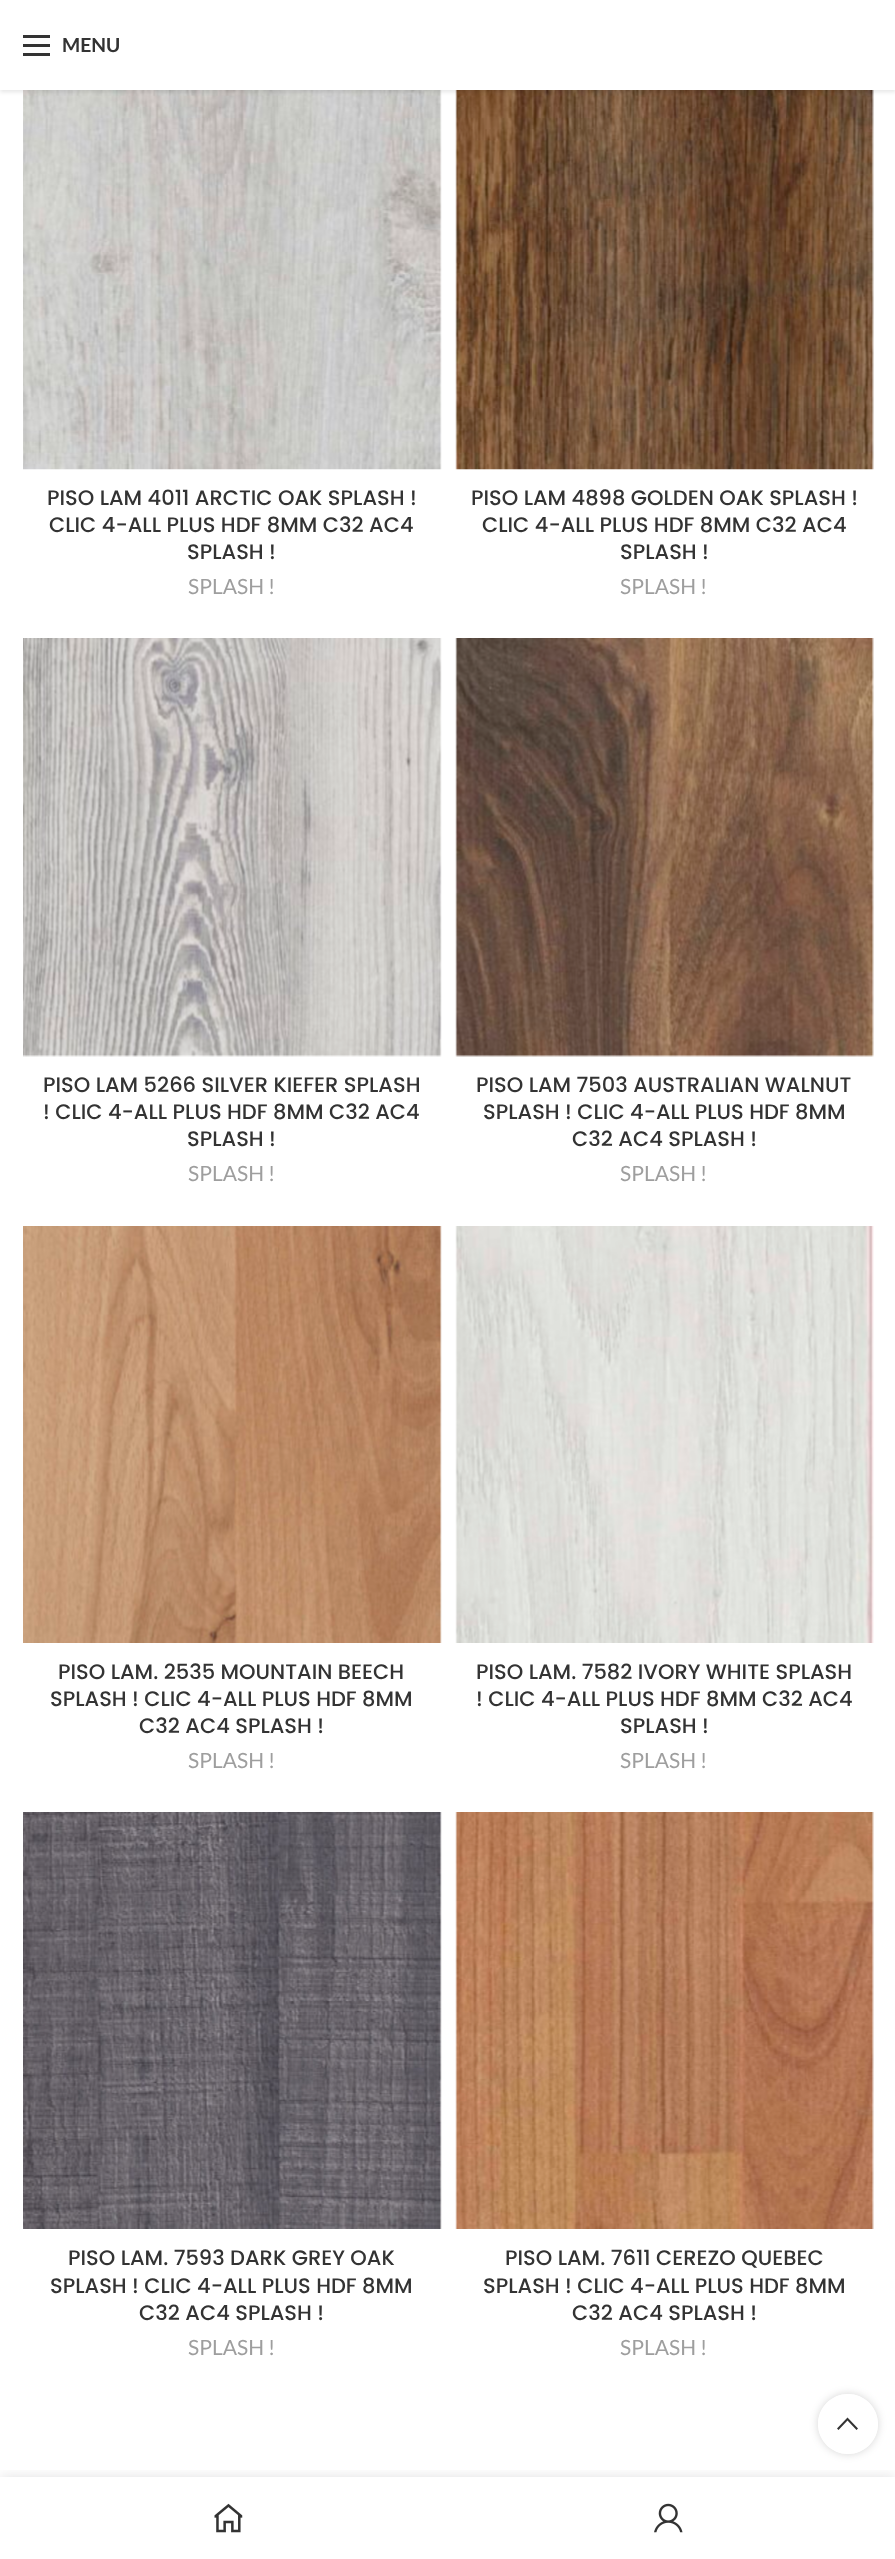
<?xml version="1.0" encoding="UTF-8"?>
<svg xmlns="http://www.w3.org/2000/svg" width="895" height="2559">
    <defs>
        <filter id="blur1" x="-50%" y="-200%" width="200%" height="500%"><feGaussianBlur stdDeviation="2"/></filter>
        <clipPath id="clip1"><path d="M 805 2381 H 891 V 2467 H 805 Z M 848 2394 C 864.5 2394 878 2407.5 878 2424 C 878 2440.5 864.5 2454 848 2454 C 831.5 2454 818 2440.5 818 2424 C 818 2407.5 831.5 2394 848 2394 Z" clip-rule="evenodd"/></clipPath>
        <filter id="blur2" x="-50%" y="-200%" width="200%" height="500%"><feGaussianBlur stdDeviation="4"/></filter>
        <clipPath id="clip2"><rect x="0" y="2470" width="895" height="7"/></clipPath>
        <filter id="blur3" x="-50%" y="-200%" width="200%" height="500%"><feGaussianBlur stdDeviation="7"/></filter>
    </defs>
    <rect width="100%" height="100%" fill="#FFFFFF"/>
    <image x="23" y="90" width="419" height="380" href="img_01.png"/>
    <image x="455" y="90" width="419" height="380" href="img_02.png"/>
    <rect x="0" y="2" width="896" height="90" fill="#000000" fill-opacity="0.1" filter="url(#blur1)"/>
    <rect x="0" y="0" width="895" height="90" fill="#FFFFFF"/>
    <rect x="23" y="44" width="27" height="3" fill="#333333"/>
    <rect x="23" y="35" width="27" height="3" fill="#333333"/>
    <rect x="23" y="53" width="27" height="3" fill="#333333"/>
    <text x="62" y="52" font-family="Lato" font-size="19.5" font-weight="700" fill="#333333">MENU</text>
    <text x="47" y="505" font-family="Poppins" font-size="21" font-weight="500" fill="#333333">PISO LAM 4011 ARCTIC OAK SPLASH !</text>
    <text x="49" y="532" font-family="Poppins" font-size="21" font-weight="500" fill="#333333">CLIC 4-ALL PLUS HDF 8MM C32 AC4</text>
    <text x="187" y="559" font-family="Poppins" font-size="21" font-weight="500" fill="#333333">SPLASH !</text>
    <text x="188" y="594" font-family="Lato" font-size="21" fill="#9E9E9E">SPLASH !</text>
    <text x="471" y="505" font-family="Poppins" font-size="21" font-weight="500" fill="#333333">PISO LAM 4898 GOLDEN OAK SPLASH !</text>
    <text x="482" y="532" font-family="Poppins" font-size="21" font-weight="500" fill="#333333">CLIC 4-ALL PLUS HDF 8MM C32 AC4</text>
    <text x="620" y="559" font-family="Poppins" font-size="21" font-weight="500" fill="#333333">SPLASH !</text>
    <text x="620" y="594" font-family="Lato" font-size="21" fill="#9E9E9E">SPLASH !</text>
    <image x="23" y="638" width="419" height="419" href="img_03.png"/>
    <text font-family="Poppins" font-size="21" font-weight="500" fill="#333333">
        <tspan x="43" y="1092">PISO LAM 5266 SILVER KIEFER SPLASH</tspan>
        <tspan x="43" y="1119">! CLIC 4-ALL PLUS HDF 8MM C32 AC4</tspan>
    </text>
    <text x="187" y="1146" font-family="Poppins" font-size="21" font-weight="500" fill="#333333">SPLASH !</text>
    <text x="188" y="1181" font-family="Lato" font-size="21" fill="#9E9E9E">SPLASH !</text>
    <image x="455" y="638" width="419" height="419" href="img_04.png"/>
    <text x="476" y="1092" font-family="Poppins" font-size="21" font-weight="500" fill="#333333">PISO LAM 7503 AUSTRALIAN WALNUT</text>
    <text x="483" y="1119" font-family="Poppins" font-size="21" font-weight="500" fill="#333333">SPLASH ! CLIC 4-ALL PLUS HDF 8MM</text>
    <text x="572" y="1146" font-family="Poppins" font-size="21" font-weight="500" fill="#333333">C32 AC4 SPLASH !</text>
    <text x="620" y="1181" font-family="Lato" font-size="21" fill="#9E9E9E">SPLASH !</text>
    <image x="23" y="1226" width="419" height="417" href="img_05.png"/>
    <text x="58" y="1679" font-family="Poppins" font-size="21" font-weight="500" fill="#333333">PISO LAM. 2535 MOUNTAIN BEECH</text>
    <text x="50" y="1706" font-family="Poppins" font-size="21" font-weight="500" fill="#333333">SPLASH ! CLIC 4-ALL PLUS HDF 8MM</text>
    <text x="139" y="1733" font-family="Poppins" font-size="21" font-weight="500" fill="#333333">C32 AC4 SPLASH !</text>
    <text x="188" y="1768" font-family="Lato" font-size="21" fill="#9E9E9E">SPLASH !</text>
    <image x="455" y="1226" width="419" height="417" href="img_06.png"/>
    <text font-family="Poppins" font-size="21" font-weight="500" fill="#333333">
        <tspan x="476" y="1679">PISO LAM. 7582 IVORY WHITE SPLASH</tspan>
        <tspan x="476" y="1706">! CLIC 4-ALL PLUS HDF 8MM C32 AC4</tspan>
    </text>
    <text x="620" y="1733" font-family="Poppins" font-size="21" font-weight="500" fill="#333333">SPLASH !</text>
    <text x="620" y="1768" font-family="Lato" font-size="21" fill="#9E9E9E">SPLASH !</text>
    <image x="23" y="1812" width="419" height="417" href="img_07.png"/>
    <text x="68" y="2265" font-family="Poppins" font-size="21" font-weight="500" fill="#333333">PISO LAM. 7593 DARK GREY OAK</text>
    <text x="50" y="2293" font-family="Poppins" font-size="21" font-weight="500" fill="#333333">SPLASH ! CLIC 4-ALL PLUS HDF 8MM</text>
    <text x="139" y="2320" font-family="Poppins" font-size="21" font-weight="500" fill="#333333">C32 AC4 SPLASH !</text>
    <text x="188" y="2355" font-family="Lato" font-size="21" fill="#9E9E9E">SPLASH !</text>
    <image x="455" y="1812" width="419" height="417" href="img_08.png"/>
    <text x="505" y="2265" font-family="Poppins" font-size="21" font-weight="500" fill="#333333">PISO LAM. 7611 CEREZO QUEBEC</text>
    <text x="483" y="2293" font-family="Poppins" font-size="21" font-weight="500" fill="#333333">SPLASH ! CLIC 4-ALL PLUS HDF 8MM</text>
    <text x="572" y="2320" font-family="Poppins" font-size="21" font-weight="500" fill="#333333">C32 AC4 SPLASH !</text>
    <text x="620" y="2355" font-family="Lato" font-size="21" fill="#9E9E9E">SPLASH !</text>
    <g clip-path="url(#clip1)">
        <rect x="818" y="2394" width="60" height="60" rx="30" fill="#000000" fill-opacity="0.17" filter="url(#blur2)"/>
    </g>
    <circle cx="848" cy="2424" r="30" fill="#FFFFFF" fill-opacity="0.9"/>
    <path d="M 847.5 2417.5 L 858 2428.5 L 856.5 2430 L 847.5 2420.5 L 838.5 2430 L 837 2428.5 Z" fill="#333333"/>
    <g clip-path="url(#clip2)">
        <rect x="0" y="2477" width="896" height="82" fill="#000000" fill-opacity="0.12" filter="url(#blur3)"/>
    </g>
    <image x="214" y="2503" width="29" height="30" href="img_09.png"/>
    <image x="654" y="2503" width="29" height="30" href="img_10.png"/>
</svg>
